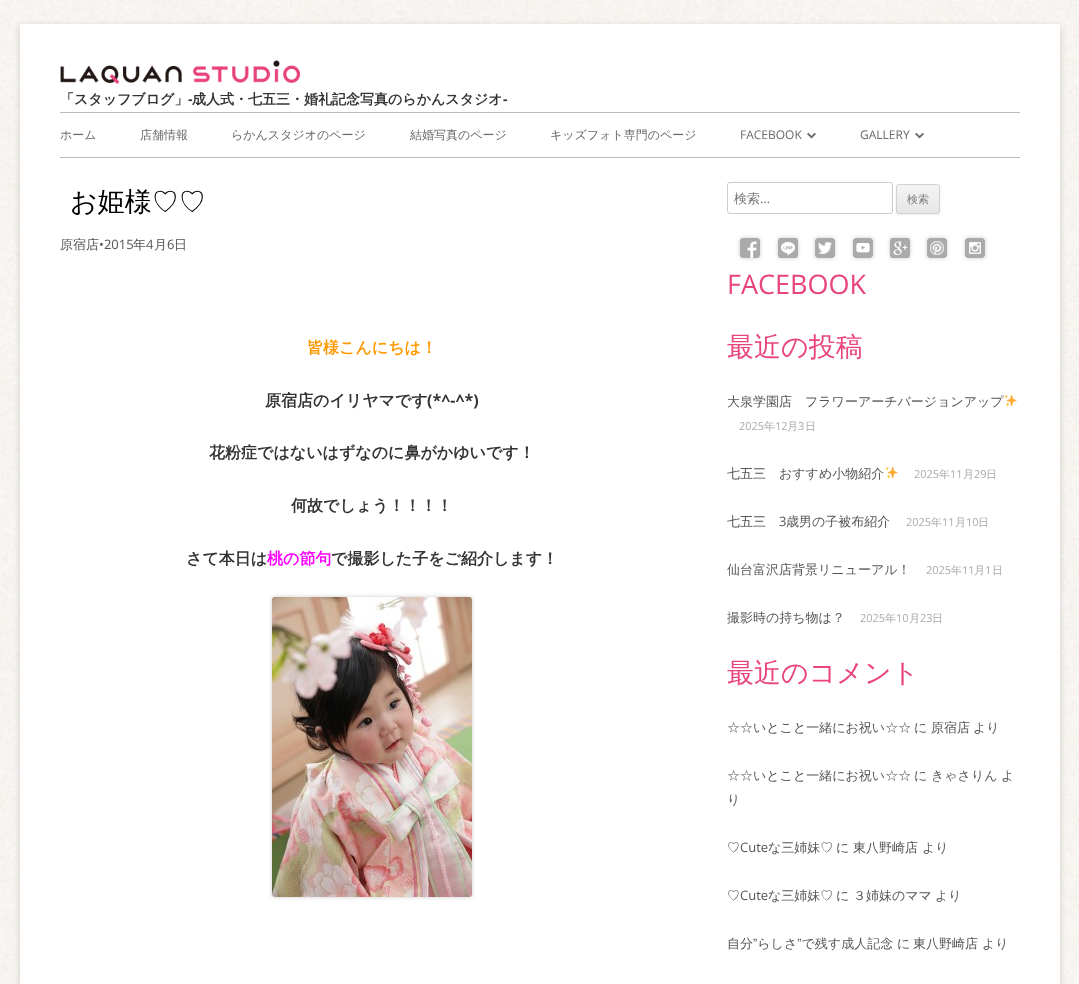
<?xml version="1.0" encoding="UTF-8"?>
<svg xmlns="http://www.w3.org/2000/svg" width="1079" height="984">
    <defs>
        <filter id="blur1" x="-50%" y="-200%" width="200%" height="500%"><feGaussianBlur stdDeviation="3"/></filter>
        <filter id="blur2" x="-50%" y="-200%" width="200%" height="500%"><feGaussianBlur stdDeviation="2"/></filter>
        <filter id="blur3" x="-50%" y="-200%" width="200%" height="500%"><feGaussianBlur stdDeviation="1"/></filter>
        <clipPath id="clip1"><rect x="896" y="184" width="44" height="30" rx="3"/></clipPath>
        <linearGradient id="g1" gradientUnits="userSpaceOnUse" x1="918" y1="185" x2="918" y2="213"><stop offset="0" stop-color="#F4F4F4"/><stop offset="1" stop-color="#E6E6E6"/></linearGradient>
    </defs>
    <rect width="100%" height="100%" fill="#FFFFFF"/>
    <image x="0" y="0" width="1079" height="984" href="img_01.png"/>
    <rect x="20" y="26" width="1040" height="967" fill="#646464" fill-opacity="0.3" filter="url(#blur1)"/>
    <rect x="20" y="24" width="1040" height="960" fill="#FFFFFF"/>
    <image x="60" y="60" width="240" height="24" href="img_02.png"/>
    <text x="60" y="104" font-family="WenQuanYi Zen Hei" font-size="14" font-weight="700" fill="#333333">「スタッフブログ」</text>
    <text x="188" y="104" font-family="Open Sans" font-size="14" font-weight="700" fill="#333333">-</text>
    <text x="192" y="104" font-family="WenQuanYi Zen Hei" font-size="14" font-weight="700" fill="#333333">成人式・七五三・婚礼記念写真のらかんスタジオ</text>
    <text x="503" y="104" font-family="Open Sans" font-size="14" font-weight="700" fill="#333333">-</text>
    <rect x="60" y="112" width="960" height="1" fill="#BBBBBB"/>
    <rect x="60" y="157" width="960" height="1" fill="#BBBBBB"/>
    <text x="60" y="139" font-family="WenQuanYi Zen Hei" font-size="12" font-weight="500" fill="#6A6A6A">ホーム</text>
    <text x="140" y="139" font-family="WenQuanYi Zen Hei" font-size="12" font-weight="500" fill="#6A6A6A">店舗情報</text>
    <text x="231" y="139" font-family="WenQuanYi Zen Hei" font-size="12" font-weight="500" fill="#6A6A6A">らかんスタジオのページ</text>
    <text x="410" y="139" font-family="WenQuanYi Zen Hei" font-size="12" font-weight="500" fill="#6A6A6A">結婚写真のページ</text>
    <text x="550" y="139" font-family="WenQuanYi Zen Hei" font-size="12" font-weight="500" fill="#6A6A6A">キッズフォト専門のページ</text>
    <text x="740" y="139" font-family="Open Sans" font-size="12" fill="#6A6A6A">FACEBOOK</text>
    <image x="807" y="132" width="9" height="7" href="img_03.png"/>
    <text x="860" y="139" font-family="Open Sans" font-size="12" fill="#6A6A6A">GALLERY</text>
    <image x="915" y="132" width="9" height="7" href="img_03.png"/>
    <text x="70" y="211" font-family="WenQuanYi Zen Hei" font-size="27" font-weight="500" fill="#000000">お姫様♡♡</text>
    <text x="60" y="249" font-family="WenQuanYi Zen Hei" font-size="13" font-weight="500" fill="#555555">原宿店</text>
    <text x="99" y="249" font-family="Open Sans" font-size="13" fill="#555555">•2015</text>
    <text x="133" y="249" font-family="WenQuanYi Zen Hei" font-size="13" font-weight="500" fill="#555555">年</text>
    <text x="146" y="249" font-family="Open Sans" font-size="13" fill="#555555">4</text>
    <text x="154" y="249" font-family="WenQuanYi Zen Hei" font-size="13" font-weight="500" fill="#555555">月</text>
    <text x="167" y="249" font-family="Open Sans" font-size="13" fill="#555555">6</text>
    <text x="174" y="249" font-family="WenQuanYi Zen Hei" font-size="13" font-weight="500" fill="#555555">日</text>
    <text x="307" y="353" font-family="WenQuanYi Zen Hei" font-size="16" font-weight="700" fill="#FF9900">皆様こんにちは！</text>
    <text x="265" y="406" font-family="WenQuanYi Zen Hei" font-size="16" font-weight="700" fill="#333333">原宿店のイリヤマです</text>
    <text x="427" y="406" font-family="Open Sans" font-size="16" font-weight="700" fill="#333333">(*^-^*)</text>
    <text x="209" y="458" font-family="WenQuanYi Zen Hei" font-size="16" font-weight="700" fill="#333333">花粉症ではないはずなのに鼻がかゆいです！</text>
    <text x="291" y="511" font-family="WenQuanYi Zen Hei" font-size="16" font-weight="700" fill="#333333">何故でしょう！！！！</text>
    <text x="186" y="564" font-family="WenQuanYi Zen Hei" font-size="16" font-weight="700" fill="#333333">さて本日は</text>
    <text x="267" y="564" font-family="WenQuanYi Zen Hei" font-size="16" font-weight="700" fill="#FF00FF">桃の節句</text>
    <text x="331" y="564" font-family="WenQuanYi Zen Hei" font-size="16" font-weight="700" fill="#333333">で撮影した子をご紹介します！</text>
    <rect x="272" y="597" width="200" height="300" rx="3" fill="#000000" fill-opacity="0.2" filter="url(#blur2)"/>
    <image x="272" y="597" width="200" height="300" href="img_04.png"/>
    <rect x="727.5" y="182.5" width="165" height="31" rx="2.5" fill="none" stroke="#CCCCCC"/>
    <text x="734" y="203" font-family="WenQuanYi Zen Hei" font-size="13" font-weight="500" fill="#757575">検索</text>
    <text x="760" y="203" font-family="Open Sans" font-size="13" fill="#757575">…</text>
    <rect x="896" y="185" width="44" height="30" rx="3" fill="#404040" fill-opacity="0.1" filter="url(#blur3)"/>
    <g clip-path="url(#clip1)">
        <rect x="896" y="185" width="44" height="28" fill="url(#g1)"/>
    </g>
    <rect x="896.5" y="184.5" width="43" height="29" rx="2.5" fill="none" stroke="#D2D2D2"/>
    <text x="907" y="203" font-family="WenQuanYi Zen Hei" font-size="11" font-weight="500" fill="#7C7C7C">検索</text>
    <rect x="740" y="238" width="20" height="20" rx="3" fill="#000000" fill-opacity="0.2" filter="url(#blur2)"/>
    <image x="740" y="238" width="20" height="20" href="img_05.png"/>
    <rect x="778" y="238" width="20" height="20" rx="3" fill="#000000" fill-opacity="0.2" filter="url(#blur2)"/>
    <image x="778" y="238" width="20" height="20" href="img_06.png"/>
    <rect x="815" y="238" width="20" height="20" rx="3" fill="#000000" fill-opacity="0.2" filter="url(#blur2)"/>
    <image x="815" y="238" width="20" height="20" href="img_07.png"/>
    <rect x="853" y="238" width="20" height="20" rx="3" fill="#000000" fill-opacity="0.2" filter="url(#blur2)"/>
    <image x="853" y="238" width="20" height="20" href="img_08.png"/>
    <rect x="890" y="238" width="20" height="20" rx="3" fill="#000000" fill-opacity="0.2" filter="url(#blur2)"/>
    <image x="890" y="238" width="20" height="20" href="img_09.png"/>
    <rect x="927" y="238" width="20" height="20" rx="3" fill="#000000" fill-opacity="0.2" filter="url(#blur2)"/>
    <image x="927" y="238" width="20" height="20" href="img_10.png"/>
    <rect x="965" y="238" width="20" height="20" rx="3" fill="#000000" fill-opacity="0.2" filter="url(#blur2)"/>
    <image x="965" y="238" width="20" height="20" href="img_11.png"/>
    <text x="727" y="294" font-family="Open Sans" font-size="27" fill="#E8447E">FACEBOOK</text>
    <text x="727" y="356" font-family="WenQuanYi Zen Hei" font-size="27" font-weight="500" fill="#E8447E">最近の投稿</text>
    <text x="727" y="406" font-family="WenQuanYi Zen Hei" font-size="13" font-weight="500" fill="#555555">大泉学園店　フラワーアーチバージョンアップ</text>
    <image x="1004" y="394" width="13" height="13" href="img_12.png"/>
    <text x="739" y="430" font-family="Open Sans" font-size="11" fill="#AAAAAA">2025</text>
    <text x="764" y="430" font-family="WenQuanYi Zen Hei" font-size="11" font-weight="500" fill="#AAAAAA">年</text>
    <text x="775" y="430" font-family="Open Sans" font-size="11" fill="#AAAAAA">12</text>
    <text x="787" y="430" font-family="WenQuanYi Zen Hei" font-size="11" font-weight="500" fill="#AAAAAA">月</text>
    <text x="798" y="430" font-family="Open Sans" font-size="11" fill="#AAAAAA">3</text>
    <text x="805" y="430" font-family="WenQuanYi Zen Hei" font-size="11" font-weight="500" fill="#AAAAAA">日</text>
    <text x="727" y="478" font-family="WenQuanYi Zen Hei" font-size="13" font-weight="500" fill="#555555">七五三　おすすめ小物紹介</text>
    <image x="885" y="466" width="13" height="13" href="img_12.png"/>
    <text x="914" y="478" font-family="Open Sans" font-size="11" fill="#AAAAAA">2025</text>
    <text x="939" y="478" font-family="WenQuanYi Zen Hei" font-size="11" font-weight="500" fill="#AAAAAA">年</text>
    <text x="950" y="478" font-family="Open Sans" font-size="11" fill="#AAAAAA">11</text>
    <text x="963" y="478" font-family="WenQuanYi Zen Hei" font-size="11" font-weight="500" fill="#AAAAAA">月</text>
    <text x="974" y="478" font-family="Open Sans" font-size="11" fill="#AAAAAA">29</text>
    <text x="986" y="478" font-family="WenQuanYi Zen Hei" font-size="11" font-weight="500" fill="#AAAAAA">日</text>
    <text x="727" y="526" font-family="WenQuanYi Zen Hei" font-size="13" font-weight="500" fill="#555555">七五三</text>
    <text x="779" y="526" font-family="Open Sans" font-size="13" fill="#555555">3</text>
    <text x="786" y="526" font-family="WenQuanYi Zen Hei" font-size="13" font-weight="500" fill="#555555">歳男の子被布紹介</text>
    <text x="906" y="526" font-family="Open Sans" font-size="11" fill="#AAAAAA">2025</text>
    <text x="931" y="526" font-family="WenQuanYi Zen Hei" font-size="11" font-weight="500" fill="#AAAAAA">年</text>
    <text x="942" y="526" font-family="Open Sans" font-size="11" fill="#AAAAAA">11</text>
    <text x="955" y="526" font-family="WenQuanYi Zen Hei" font-size="11" font-weight="500" fill="#AAAAAA">月</text>
    <text x="966" y="526" font-family="Open Sans" font-size="11" fill="#AAAAAA">10</text>
    <text x="978" y="526" font-family="WenQuanYi Zen Hei" font-size="11" font-weight="500" fill="#AAAAAA">日</text>
    <text x="727" y="574" font-family="WenQuanYi Zen Hei" font-size="13" font-weight="500" fill="#555555">仙台富沢店背景リニューアル！</text>
    <text x="926" y="574" font-family="Open Sans" font-size="11" fill="#AAAAAA">2025</text>
    <text x="951" y="574" font-family="WenQuanYi Zen Hei" font-size="11" font-weight="500" fill="#AAAAAA">年</text>
    <text x="962" y="574" font-family="Open Sans" font-size="11" fill="#AAAAAA">11</text>
    <text x="974" y="574" font-family="WenQuanYi Zen Hei" font-size="11" font-weight="500" fill="#AAAAAA">月</text>
    <text x="985" y="574" font-family="Open Sans" font-size="11" fill="#AAAAAA">1</text>
    <text x="992" y="574" font-family="WenQuanYi Zen Hei" font-size="11" font-weight="500" fill="#AAAAAA">日</text>
    <text x="727" y="622" font-family="WenQuanYi Zen Hei" font-size="13" font-weight="500" fill="#555555">撮影時の持ち物は？</text>
    <text x="860" y="622" font-family="Open Sans" font-size="11" fill="#AAAAAA">2025</text>
    <text x="885" y="622" font-family="WenQuanYi Zen Hei" font-size="11" font-weight="500" fill="#AAAAAA">年</text>
    <text x="896" y="622" font-family="Open Sans" font-size="11" fill="#AAAAAA">10</text>
    <text x="909" y="622" font-family="WenQuanYi Zen Hei" font-size="11" font-weight="500" fill="#AAAAAA">月</text>
    <text x="920" y="622" font-family="Open Sans" font-size="11" fill="#AAAAAA">23</text>
    <text x="932" y="622" font-family="WenQuanYi Zen Hei" font-size="11" font-weight="500" fill="#AAAAAA">日</text>
    <text x="727" y="682" font-family="WenQuanYi Zen Hei" font-size="27" font-weight="500" fill="#E8447E">最近のコメント</text>
    <text x="727" y="732" font-family="WenQuanYi Zen Hei" font-size="13" font-weight="500" fill="#555555">☆☆いとこと一緒にお祝い☆☆</text>
    <text x="914" y="732" font-family="WenQuanYi Zen Hei" font-size="13" font-weight="500" fill="#555555">に</text>
    <text x="931" y="732" font-family="WenQuanYi Zen Hei" font-size="13" font-weight="500" fill="#555555">原宿店</text>
    <text x="973" y="732" font-family="WenQuanYi Zen Hei" font-size="13" font-weight="500" fill="#555555">より</text>
    <text x="727" y="780" font-family="WenQuanYi Zen Hei" font-size="13" font-weight="500" fill="#555555">☆☆いとこと一緒にお祝い☆☆</text>
    <text x="914" y="780" font-family="WenQuanYi Zen Hei" font-size="13" font-weight="500" fill="#555555">に</text>
    <text x="931" y="780" font-family="WenQuanYi Zen Hei" font-size="13" font-weight="500" fill="#555555">きゃさりん</text>
    <text x="1001" y="780" font-family="WenQuanYi Zen Hei" font-size="13" font-weight="500" fill="#555555">よ</text>
    <text x="727" y="804" font-family="WenQuanYi Zen Hei" font-size="13" font-weight="500" fill="#555555">り</text>
    <text x="727" y="852" font-family="WenQuanYi Zen Hei" font-size="13" font-weight="500" fill="#555555">♡</text>
    <text x="740" y="852" font-family="Open Sans" font-size="13" fill="#555555">Cute</text>
    <text x="768" y="852" font-family="WenQuanYi Zen Hei" font-size="13" font-weight="500" fill="#555555">な三姉妹♡</text>
    <text x="836" y="852" font-family="WenQuanYi Zen Hei" font-size="13" font-weight="500" fill="#555555">に</text>
    <text x="853" y="852" font-family="WenQuanYi Zen Hei" font-size="13" font-weight="500" fill="#555555">東八野崎店</text>
    <text x="922" y="852" font-family="WenQuanYi Zen Hei" font-size="13" font-weight="500" fill="#555555">より</text>
    <text x="727" y="900" font-family="WenQuanYi Zen Hei" font-size="13" font-weight="500" fill="#555555">♡</text>
    <text x="740" y="900" font-family="Open Sans" font-size="13" fill="#555555">Cute</text>
    <text x="768" y="900" font-family="WenQuanYi Zen Hei" font-size="13" font-weight="500" fill="#555555">な三姉妹♡</text>
    <text x="836" y="900" font-family="WenQuanYi Zen Hei" font-size="13" font-weight="500" fill="#555555">に</text>
    <text x="853" y="900" font-family="WenQuanYi Zen Hei" font-size="13" font-weight="500" fill="#555555">３姉妹のママ</text>
    <text x="935" y="900" font-family="WenQuanYi Zen Hei" font-size="13" font-weight="500" fill="#555555">より</text>
    <text x="727" y="948" font-family="WenQuanYi Zen Hei" font-size="13" font-weight="500" fill="#555555">自分”らしさ”で残す成人記念 に</text>
    <text x="913" y="948" font-family="WenQuanYi Zen Hei" font-size="13" font-weight="500" fill="#555555">東八野崎店</text>
    <text x="982" y="948" font-family="WenQuanYi Zen Hei" font-size="13" font-weight="500" fill="#555555">より</text>
</svg>
